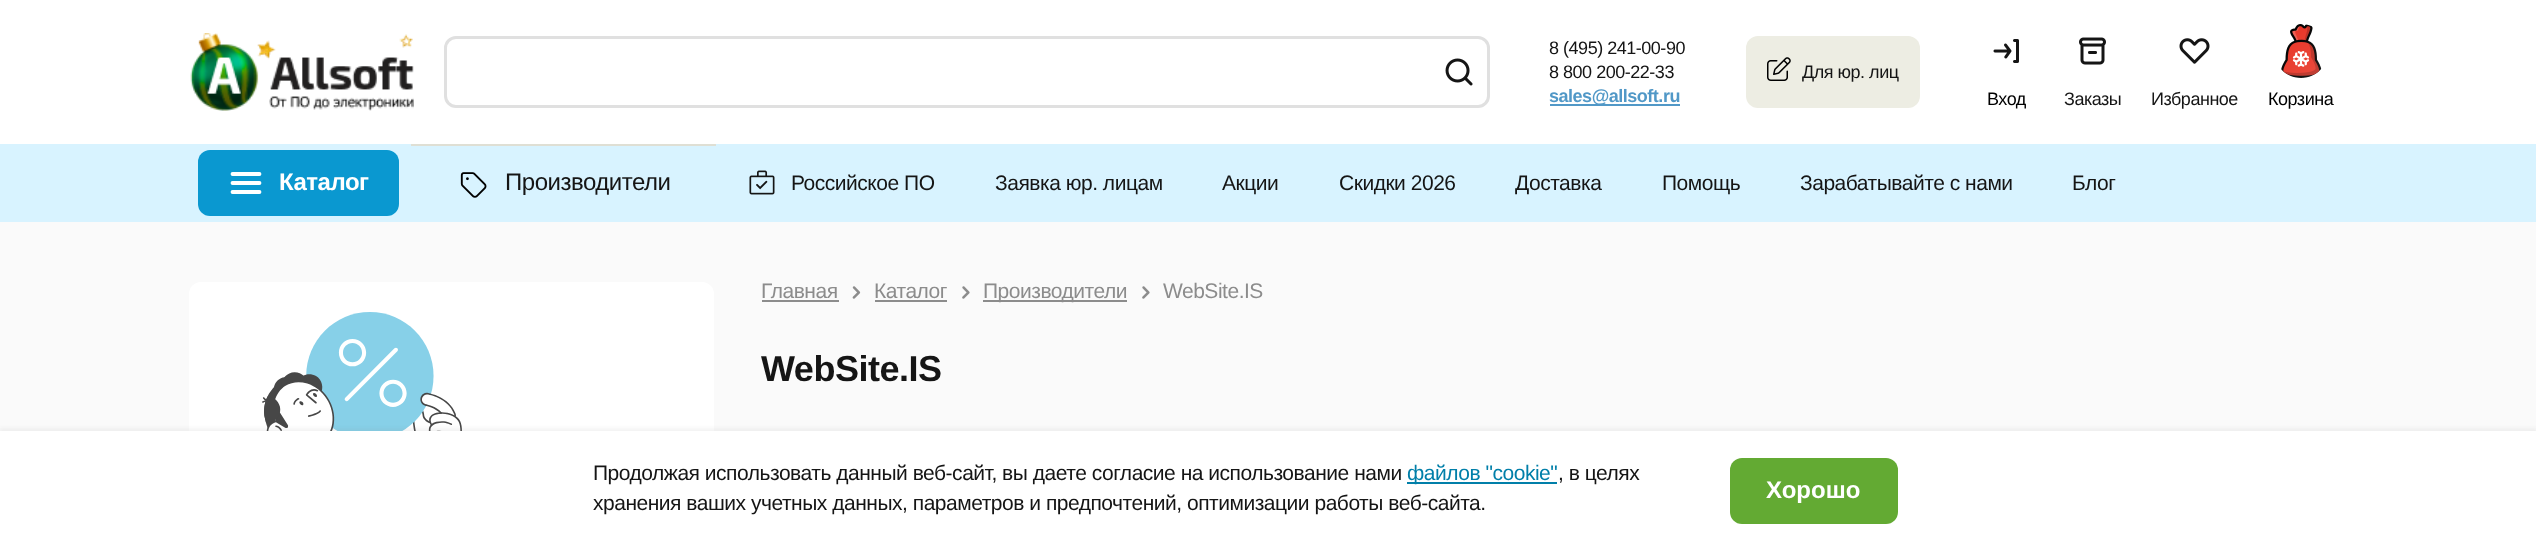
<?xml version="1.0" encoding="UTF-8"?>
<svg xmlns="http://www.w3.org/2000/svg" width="2536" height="550">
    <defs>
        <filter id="blur1" x="-50%" y="-200%" width="200%" height="500%"><feGaussianBlur stdDeviation="1.5"/></filter>
    </defs>
    <rect width="100%" height="100%" fill="#FAFAFA"/>
    <rect x="0" y="0" width="2536" height="144" fill="#FFFFFF"/>
    <image x="190" y="33" width="224" height="78" href="img_01.png"/>
    <rect x="445.5" y="37.5" width="1043" height="69" rx="10.5" fill="none" stroke="#E0E0E0" stroke-width="3"/>
    <image x="1445" y="58" width="28" height="28" href="img_02.png"/>
    <text font-family="Liberation Sans" font-size="18" letter-spacing="-0.48" fill="#151515">
        <tspan x="1549" y="54">8 (495) 241-00-90</tspan>
        <tspan x="1549" y="78">8 800 200-22-33</tspan>
    </text>
    <rect x="1550" y="104" width="130" height="2" fill="#5198C7"/>
    <text x="1549" y="102" font-family="Liberation Sans" font-size="18" font-weight="700" letter-spacing="-0.48" fill="#5198C7">sales@allsoft.ru</text>
    <rect x="1746" y="36" width="174" height="72" rx="12" fill="#EDEDE3"/>
    <image x="1767" y="57" width="24" height="24" href="img_03.png"/>
    <text x="1802" y="78" font-family="Liberation Sans" font-size="18" letter-spacing="-0.48" fill="#151515">Для юр. лиц</text>
    <image x="1993" y="39" width="26" height="24" href="img_04.png"/>
    <text x="1987" y="105" font-family="Liberation Sans" font-size="18" letter-spacing="-0.48" fill="#000000">Вход</text>
    <image x="2079" y="37" width="27" height="28" href="img_05.png"/>
    <text x="2064" y="105" font-family="Liberation Sans" font-size="18" letter-spacing="-0.48" fill="#151515">Заказы</text>
    <image x="2179" y="38" width="31" height="26" href="img_06.png"/>
    <text x="2151" y="105" font-family="Liberation Sans" font-size="18" letter-spacing="-0.48" fill="#151515">Избранное</text>
    <image x="2281" y="24" width="41" height="54" href="img_07.png"/>
    <text x="2268" y="105" font-family="Liberation Sans" font-size="18" letter-spacing="-0.48" fill="#000000">Корзина</text>
    <rect x="0" y="144" width="2536" height="78" fill="#D8F3FF"/>
    <rect x="198" y="150" width="201" height="66" rx="12" fill="#0A98D0"/>
    <path d="M 232.5 174 H 259.5 M 232.5 183 H 259.5 M 232.5 192 H 259.5" fill="none" stroke="#FFFFFF" stroke-width="3.8" stroke-linecap="round" stroke-linejoin="round"/>
    <text x="279" y="190" font-family="Liberation Sans" font-size="24" font-weight="700" letter-spacing="-0.48" fill="#FFFFFF">Каталог</text>
    <rect x="411" y="144" width="305" height="2" fill="#DFDFD4"/>
    <image x="460" y="172" width="27" height="26" href="img_08.png"/>
    <text x="505" y="190" font-family="Liberation Sans" font-size="24" letter-spacing="-0.48" fill="#151515">Производители</text>
    <image x="749" y="170" width="26" height="25" href="img_09.png"/>
    <text x="791" y="190" font-family="Liberation Sans" font-size="21" letter-spacing="-0.48" fill="#151515">Российское ПО</text>
    <text x="995" y="190" font-family="Liberation Sans" font-size="21" letter-spacing="-0.48" fill="#151515">Заявка юр. лицам</text>
    <text x="1222" y="190" font-family="Liberation Sans" font-size="21" letter-spacing="-0.48" fill="#151515">Акции</text>
    <text x="1339" y="190" font-family="Liberation Sans" font-size="21" letter-spacing="-0.48" fill="#151515">Скидки 2026</text>
    <text x="1515" y="190" font-family="Liberation Sans" font-size="21" letter-spacing="-0.48" fill="#151515">Доставка</text>
    <text x="1662" y="190" font-family="Liberation Sans" font-size="21" letter-spacing="-0.48" fill="#151515">Помощь</text>
    <text x="1800" y="190" font-family="Liberation Sans" font-size="21" letter-spacing="-0.48" fill="#151515">Зарабатывайте с нами</text>
    <text x="2072" y="190" font-family="Liberation Sans" font-size="21" letter-spacing="-0.48" fill="#151515">Блог</text>
    <rect x="189" y="282" width="525" height="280" rx="12" fill="#FFFFFF"/>
    <image x="262" y="312" width="200" height="119" href="img_10.png"/>
    <text x="761" y="298" font-family="Liberation Sans" font-size="21" letter-spacing="-0.48" fill="#8C8C8C">Главная</text>
    <rect x="762" y="300" width="77" height="2" fill="#8C8C8C"/>
    <image x="852" y="286" width="9" height="13" href="img_11.png"/>
    <text x="874" y="298" font-family="Liberation Sans" font-size="21" letter-spacing="-0.48" fill="#8C8C8C">Каталог</text>
    <rect x="875" y="300" width="72" height="2" fill="#8C8C8C"/>
    <image x="962" y="286" width="8" height="13" href="img_12.png"/>
    <rect x="983" y="300" width="144" height="2" fill="#8C8C8C"/>
    <text x="983" y="298" font-family="Liberation Sans" font-size="21" letter-spacing="-0.48" fill="#8C8C8C">Производители</text>
    <image x="1142" y="286" width="8" height="13" href="img_12.png"/>
    <text x="1163" y="298" font-family="Liberation Sans" font-size="21" letter-spacing="-0.48" fill="#8C8C8C">WebSite.IS</text>
    <text x="761" y="381" font-family="Liberation Sans" font-size="36" font-weight="700" letter-spacing="-0.48" fill="#151515">WebSite.IS</text>
    <rect x="0" y="428" width="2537" height="120" fill="#777777" fill-opacity="0.08" filter="url(#blur1)"/>
    <rect x="0" y="431" width="2536" height="119" fill="#FFFFFF"/>
    <text x="593" y="480" font-family="Liberation Sans" font-size="21" letter-spacing="-0.48" fill="#151515">Продолжая использовать данный веб-сайт, вы даете согласие на использование нами</text>
    <rect x="1407" y="482" width="150" height="2" fill="#017FA9"/>
    <text x="1407" y="480" font-family="Liberation Sans" font-size="21" letter-spacing="-0.48" fill="#017FA9">файлов "cookie"</text>
    <text x="1558" y="480" font-family="Liberation Sans" font-size="21" letter-spacing="-0.48" fill="#151515">, в целях</text>
    <text x="593" y="510" font-family="Liberation Sans" font-size="21" letter-spacing="-0.48" fill="#151515">хранения ваших учетных данных, параметров и предпочтений, оптимизации работы веб-сайта.</text>
    <rect x="1730" y="458" width="168" height="66" rx="12" fill="#63AA33"/>
    <text x="1766" y="498" font-family="Liberation Sans" font-size="24" font-weight="700" fill="#FFFFFF">Хорошо</text>
</svg>
